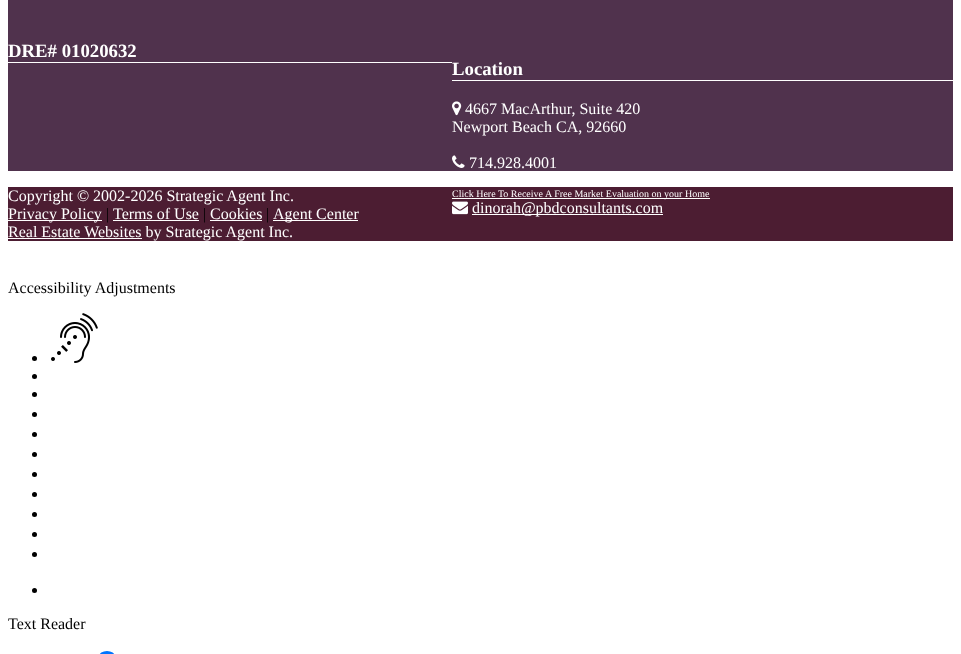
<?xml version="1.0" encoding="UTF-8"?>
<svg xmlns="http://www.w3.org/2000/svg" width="961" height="654">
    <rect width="100%" height="100%" fill="#FFFFFF"/>
    <rect x="8" y="0" width="945" height="171" fill="#50324D"/>
    <rect x="8" y="62" width="444" height="1" fill="#FFFFFF"/>
    <text x="8" y="57" font-family="Liberation Serif" font-size="18.75" font-weight="700" fill="#FFFFFF">DRE# 01020632</text>
    <rect x="452" y="80" width="501" height="1" fill="#FFFFFF"/>
    <text x="452" y="75" font-family="Liberation Serif" font-size="18.75" font-weight="700" fill="#FFFFFF">Location</text>
    <image x="452" y="101" width="10" height="15" href="img_01.png"/>
    <text x="465" y="114" font-family="Liberation Serif" font-size="16" fill="#FFFFFF">4667 MacArthur, Suite 420</text>
    <text x="452" y="132" font-family="Liberation Serif" font-size="16" fill="#FFFFFF">Newport Beach CA, 92660</text>
    <image x="452" y="155" width="13" height="13" href="img_02.png"/>
    <text x="469" y="168" font-family="Liberation Serif" font-size="16" fill="#FFFFFF">714.928.4001</text>
    <rect x="8" y="187" width="945" height="54" fill="#4C1D32"/>
    <rect x="452" y="198" width="258" height="1" fill="#FFFFFF"/>
    <text x="452" y="197" font-family="Liberation Serif" font-size="10" fill="#FFFFFF">Click Here To Receive A Free Market Evaluation on your Home</text>
    <image x="452" y="201" width="16" height="14" href="img_03.png"/>
    <rect x="472" y="214" width="191" height="1" fill="#FFFFFF"/>
    <text x="472" y="213" font-family="Liberation Serif" font-size="16" fill="#FFFFFF">dinorah@pbdconsultants.com</text>
    <text x="8" y="201" font-family="Liberation Serif" font-size="16" fill="#FFFFFF">Copyright © 2002-2026 Strategic Agent Inc.</text>
    <rect x="8" y="220" width="94" height="1" fill="#FFFFFF"/>
    <text x="8" y="219" font-family="Liberation Serif" font-size="16" fill="#FFFFFF">Privacy Policy</text>
    <text x="106" y="219" font-family="Liberation Serif" font-size="16" fill="#000000">|</text>
    <text x="113" y="219" font-family="Liberation Serif" font-size="16" fill="#FFFFFF">Terms of Use</text>
    <rect x="113" y="220" width="86" height="1" fill="#FFFFFF"/>
    <text x="203" y="219" font-family="Liberation Serif" font-size="16" fill="#000000">|</text>
    <text x="210" y="219" font-family="Liberation Serif" font-size="16" fill="#FFFFFF">Cookies</text>
    <rect x="210" y="220" width="52" height="1" fill="#FFFFFF"/>
    <text x="266" y="219" font-family="Liberation Serif" font-size="16" fill="#000000">|</text>
    <rect x="273" y="220" width="85" height="1" fill="#FFFFFF"/>
    <text x="273" y="219" font-family="Liberation Serif" font-size="16" fill="#FFFFFF">Agent Center</text>
    <rect x="8" y="238" width="134" height="1" fill="#FFFFFF"/>
    <text x="8" y="237" font-family="Liberation Serif" font-size="16" fill="#FFFFFF">Real Estate Websites by Strategic Agent Inc.</text>
    <text x="8" y="293" font-family="Liberation Serif" font-size="16" fill="#000000">Accessibility Adjustments</text>
    <circle cx="34.5" cy="358.5" r="2.5" fill="#000000"/>
    <image x="51" y="313" width="47" height="50" href="img_04.png"/>
    <circle cx="34.5" cy="376.5" r="2.5" fill="#000000"/>
    <circle cx="34.5" cy="394.5" r="2.5" fill="#000000"/>
    <circle cx="34.5" cy="414.5" r="2.5" fill="#000000"/>
    <circle cx="34.5" cy="434.5" r="2.5" fill="#000000"/>
    <circle cx="34.5" cy="454.5" r="2.5" fill="#000000"/>
    <circle cx="34.5" cy="474.5" r="2.5" fill="#000000"/>
    <circle cx="34.5" cy="494.5" r="2.5" fill="#000000"/>
    <circle cx="34.5" cy="514.5" r="2.5" fill="#000000"/>
    <circle cx="34.5" cy="534.5" r="2.5" fill="#000000"/>
    <circle cx="34.5" cy="554.5" r="2.5" fill="#000000"/>
    <circle cx="34.5" cy="590.5" r="2.5" fill="#000000"/>
    <text x="8" y="629" font-family="Liberation Serif" font-size="16" fill="#000000">Text Reader</text>
    <rect x="99" y="651" width="16" height="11" rx="8" fill="#0075FF"/>
</svg>
